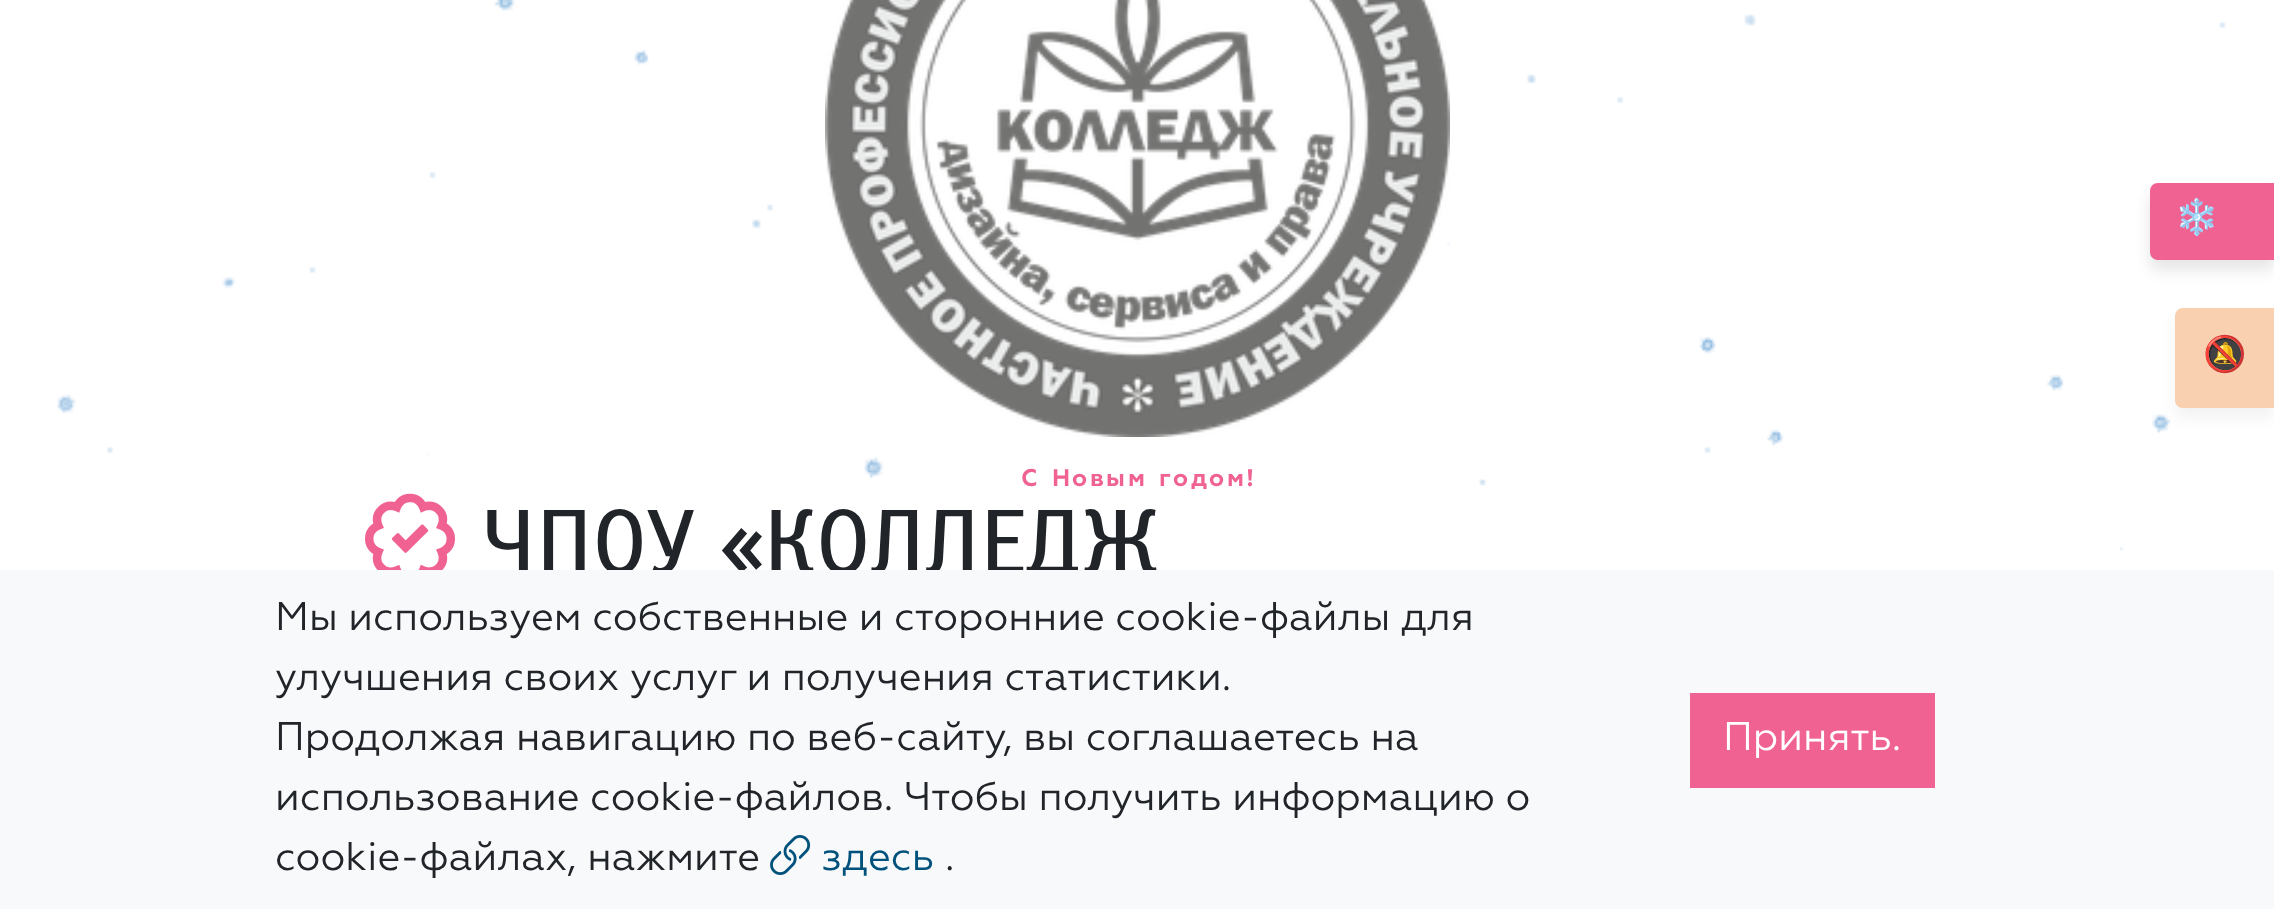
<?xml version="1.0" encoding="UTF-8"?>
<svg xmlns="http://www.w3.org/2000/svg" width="2274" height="909">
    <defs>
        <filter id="blur1" x="-50%" y="-200%" width="200%" height="500%"><feGaussianBlur stdDeviation="7.5"/></filter>
    </defs>
    <rect width="100%" height="100%" fill="#FFFFFF"/>
    <image x="57" y="0" width="2169" height="551" href="img_01.png"/>
    <rect x="2150" y="193" width="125" height="77" rx="8" fill="#000000" fill-opacity="0.1" filter="url(#blur1)"/>
    <path d="M 2158 183 H 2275 V 260 H 2158 C 2153.5 260 2150 256.5 2150 252 V 191 C 2150 186.5 2153.5 183 2158 183 Z" fill="#F06292"/>
    <text x="2175" y="229" font-family="Noto Color Emoji" font-size="35" fill="#FFFFFF">❄️</text>
    <image x="227" y="243" width="1223" height="45" href="img_02.png"/>
    <image x="1699" y="342" width="4" height="4" href="img_03.png"/>
    <rect x="2175" y="318" width="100" height="100" rx="8" fill="#000000" fill-opacity="0.05" filter="url(#blur1)"/>
    <path d="M 2183 308 H 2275 V 408 H 2183 C 2178.5 408 2175 404.5 2175 400 V 316 C 2175 311.5 2178.5 308 2183 308 Z" fill="#FAD1B0"/>
    <text x="2203" y="366" font-family="Noto Color Emoji" font-size="35" fill="#FFFFFF">🔕</text>
    <image x="825" y="0" width="625" height="437" href="img_04.png"/>
    <text x="1021" y="486" font-family="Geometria" font-size="24" font-weight="700" fill="#F06292">С</text>
    <text x="1052" y="486" font-family="Geometria" font-size="24" font-weight="700" fill="#F06292">Н</text>
    <text x="1072" y="486" font-family="Geometria" font-size="24" font-weight="700" fill="#F06292">о</text>
    <text x="1090" y="486" font-family="Geometria" font-size="24" font-weight="700" fill="#F06292">в</text>
    <text x="1106" y="486" font-family="Geometria" font-size="24" font-weight="700" fill="#F06292">ы</text>
    <text x="1128" y="486" font-family="Geometria" font-size="24" font-weight="700" fill="#F06292">м</text>
    <text x="1159" y="486" font-family="Geometria" font-size="24" font-weight="700" fill="#F06292">г</text>
    <text x="1173" y="486" font-family="Geometria" font-size="24" font-weight="700" fill="#F06292">о</text>
    <text x="1191" y="486" font-family="Geometria" font-size="24" font-weight="700" fill="#F06292">д</text>
    <text x="1209" y="486" font-family="Geometria" font-size="24" font-weight="700" fill="#F06292">о</text>
    <text x="1227" y="486" font-family="Geometria" font-size="24" font-weight="700" fill="#F06292">м</text>
    <text x="1246" y="486" font-family="Geometria" font-size="24" font-weight="700" fill="#F06292">!</text>
    <image x="365" y="493" width="90" height="77" href="img_05.png"/>
    <text x="482" y="573" font-family="Scada" font-size="90" fill="#212529">ЧПОУ «КОЛЛЕДЖ</text>
    <rect x="0" y="570" width="2274" height="339" fill="#F8F9FA"/>
    <text font-family="Geometria" font-size="40" fill="#212529">
        <tspan x="275" y="630">Мы используем собственные и сторонние cookie-файлы для</tspan>
        <tspan x="275" y="690">улучшения своих услуг и получения статистики.</tspan>
        <tspan x="275" y="750">Продолжая навигацию по веб-сайту, вы соглашаетесь на</tspan>
        <tspan x="275" y="810">использование cookie-файлов. Чтобы получить информацию о</tspan>
        <tspan x="275" y="870">cookie-файлах, нажмите</tspan>
    </text>
    <image x="770" y="835" width="41" height="40" href="img_06.png"/>
    <text x="821" y="870" font-family="Geometria" font-size="40" fill="#00517C">здесь</text>
    <text x="945" y="870" font-family="Geometria" font-size="40" fill="#212529">.</text>
    <rect x="1690" y="693" width="245" height="95" fill="#F06292"/>
    <text x="1723" y="750" font-family="Geometria" font-size="40" fill="#FFFFFF">Принять.</text>
</svg>
